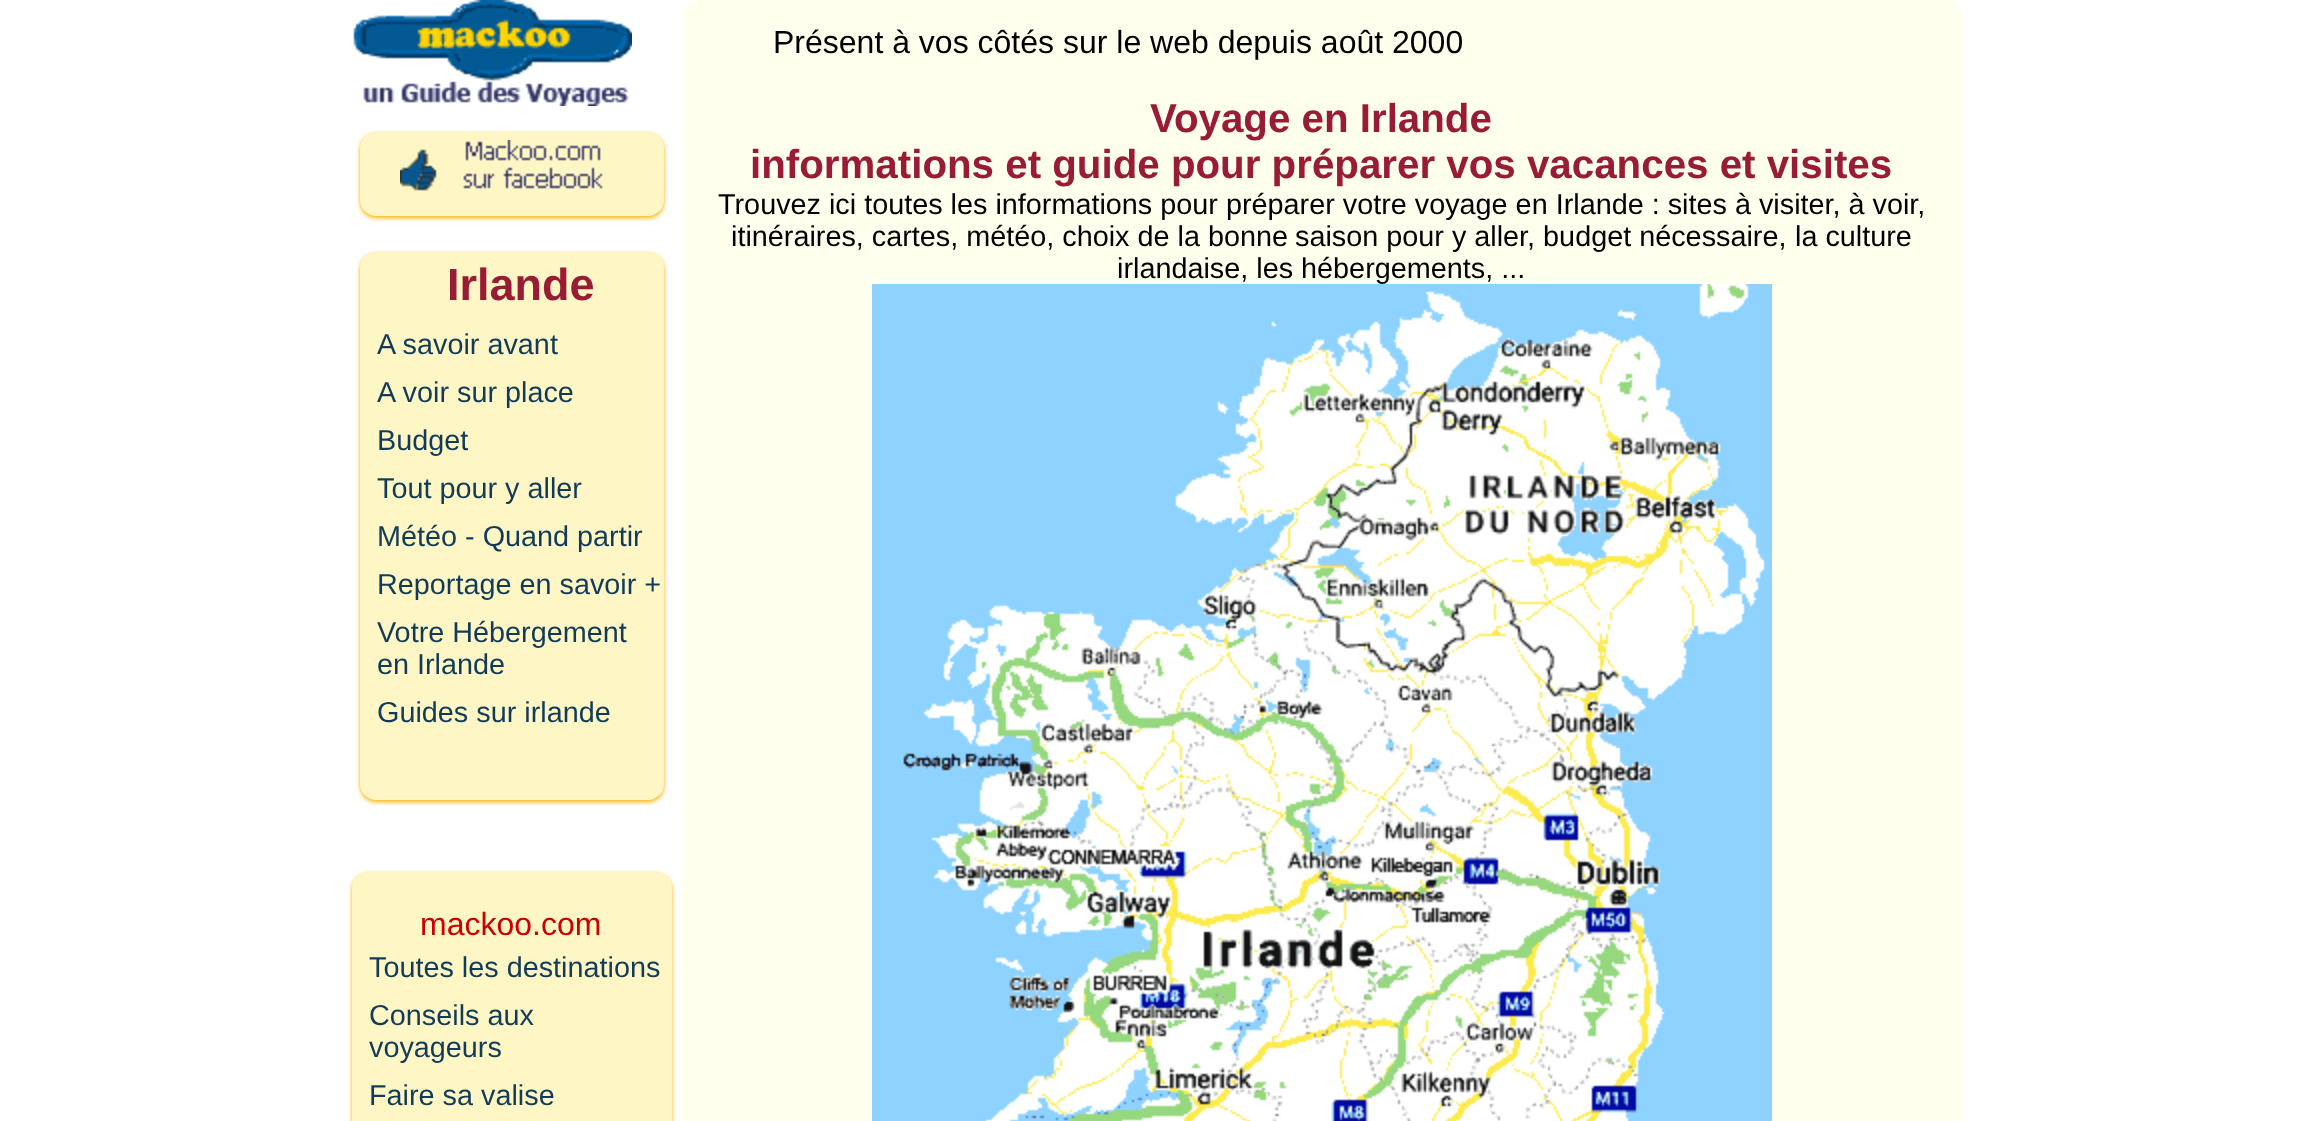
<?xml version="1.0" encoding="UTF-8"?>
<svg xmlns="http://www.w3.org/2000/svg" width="2302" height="1121">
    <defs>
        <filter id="blur1" x="-50%" y="-200%" width="200%" height="500%"><feGaussianBlur stdDeviation="2"/></filter>
    </defs>
    <rect width="100%" height="100%" fill="#FFFFFF"/>
    <image x="353" y="0" width="279" height="106" href="img_01.png"/>
    <rect x="682" y="0" width="1280" height="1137" rx="16" fill="#FFFFEE"/>
    <text x="773" y="53" font-family="Liberation Sans" font-size="32" fill="#000000">Présent à vos côtés sur le web depuis août 2000</text>
    <text x="1150" y="132" font-family="Liberation Sans" font-size="40.3" font-weight="700" fill="#991C36">Voyage en Irlande</text>
    <text x="750" y="178" font-family="Liberation Sans" font-size="40.3" font-weight="700" fill="#991C36">informations et guide pour préparer vos vacances et visites</text>
    <text x="718" y="214" font-family="Liberation Sans" font-size="28.8" fill="#000000">Trouvez ici toutes les informations pour préparer votre voyage en Irlande : sites à visiter, à voir,</text>
    <text x="731" y="246" font-family="Liberation Sans" font-size="28.8" fill="#000000">itinéraires, cartes, météo, choix de la bonne</text>
    <text x="1295" y="246" font-family="Liberation Sans" font-size="28.8" fill="#000000">saison pour y aller, budget nécessaire,</text>
    <text x="1795" y="246" font-family="Liberation Sans" font-size="28.8" fill="#000000">la culture</text>
    <text x="1117" y="278" font-family="Liberation Sans" font-size="28.8" fill="#000000">irlandaise, les hébergements, ...</text>
    <image x="872" y="284" width="900" height="837" href="img_02.png"/>
    <rect x="360" y="134" width="304" height="84" rx="16" fill="#FFB200" filter="url(#blur1)"/>
    <rect x="360" y="132" width="304" height="84" rx="16" fill="#FEF6C5"/>
    <image x="400" y="140" width="203" height="51" href="img_03.png"/>
    <rect x="360" y="254" width="304" height="548" rx="16" fill="#FFB200" filter="url(#blur1)"/>
    <rect x="360" y="252" width="304" height="548" rx="16" fill="#FEF6C5"/>
    <text x="447" y="300" font-family="Liberation Sans" font-size="45" font-weight="700" fill="#991C36">Irlande</text>
    <text font-family="Liberation Sans" font-size="28.8" fill="#113B59">
        <tspan x="377" y="354">A savoir avant</tspan>
        <tspan x="377" y="402">A voir sur place</tspan>
        <tspan x="377" y="450">Budget</tspan>
        <tspan x="377" y="498">Tout pour y aller</tspan>
        <tspan x="377" y="546">Météo - Quand partir</tspan>
        <tspan x="377" y="594">Reportage en savoir +</tspan>
        <tspan x="377" y="642">Votre Hébergement</tspan>
        <tspan x="377" y="674">en Irlande</tspan>
        <tspan x="377" y="722">Guides sur irlande</tspan>
    </text>
    <rect x="352" y="874" width="320" height="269" rx="16" fill="#FFB200" filter="url(#blur1)"/>
    <rect x="352" y="872" width="320" height="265" rx="16" fill="#FEF6C5"/>
    <text x="420" y="935" font-family="Liberation Sans" font-size="32" fill="#CC0000">mackoo.com</text>
    <text font-family="Liberation Sans" font-size="28.8" fill="#113B59">
        <tspan x="369" y="977">Toutes les destinations</tspan>
        <tspan x="369" y="1025">Conseils aux</tspan>
        <tspan x="369" y="1057">voyageurs</tspan>
        <tspan x="369" y="1105">Faire sa valise</tspan>
    </text>
</svg>
